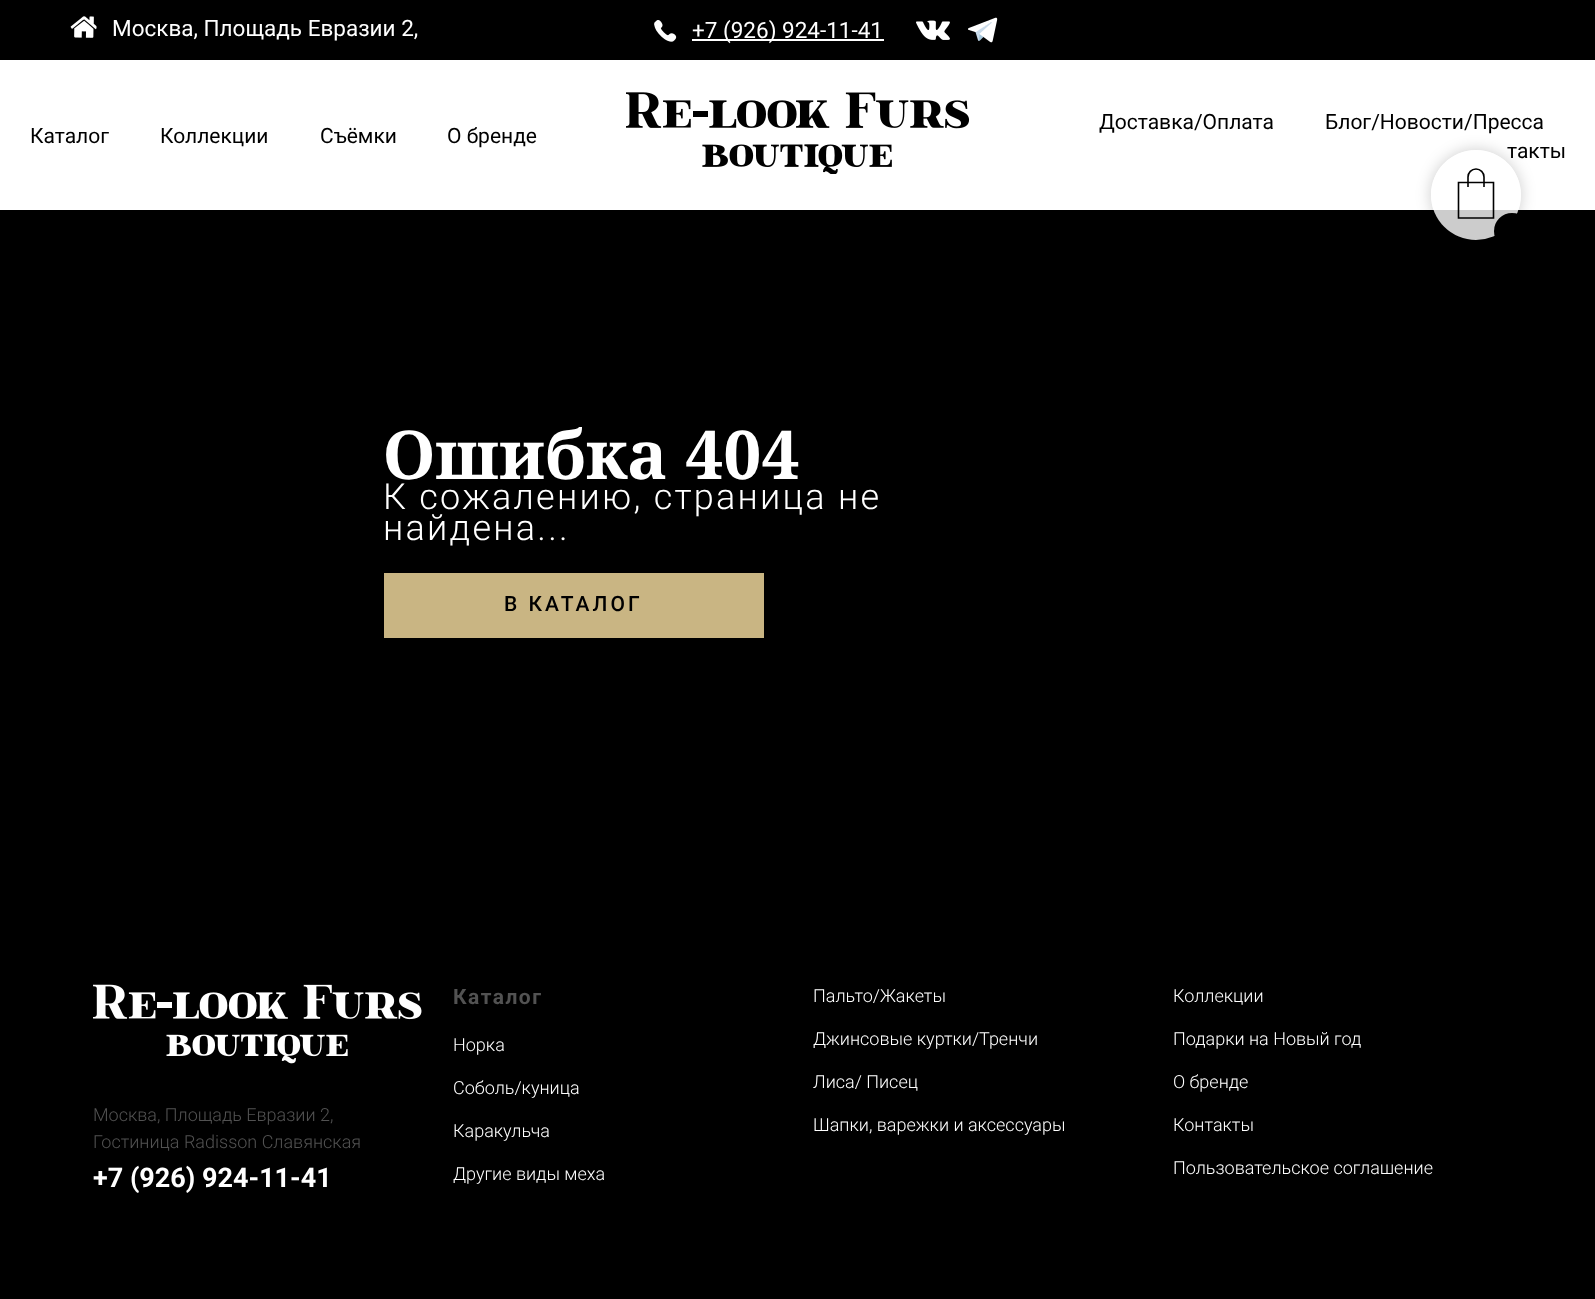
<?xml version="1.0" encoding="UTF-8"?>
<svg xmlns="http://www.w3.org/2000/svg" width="1595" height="1299">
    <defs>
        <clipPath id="clip1"><path d="M 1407 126 H 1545 V 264 H 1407 Z M 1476 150 C 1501 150 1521 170 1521 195 C 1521 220 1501 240 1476 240 C 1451 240 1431 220 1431 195 C 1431 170 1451 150 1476 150 Z" clip-rule="evenodd"/></clipPath>
        <filter id="blur1" x="-50%" y="-200%" width="200%" height="500%"><feGaussianBlur stdDeviation="7.5"/></filter>
    </defs>
    <rect width="100%" height="100%" fill="#FFFFFF"/>
    <rect x="0" y="0" width="1595" height="60" fill="#000000"/>
    <image x="70" y="16" width="27" height="22" href="img_01.png"/>
    <text x="112" y="36" font-family="Roboto" font-size="22.5" fill="#FFFFFF">Москва, Площадь Евразии 2,</text>
    <image x="654" y="20" width="23" height="22" href="img_02.png"/>
    <rect x="692" y="39" width="192" height="2" fill="#FFFFFF"/>
    <text x="692" y="38" font-family="Roboto" font-size="22.5" fill="#FFFFFF">+7 (926) 924-11-41</text>
    <image x="916" y="20" width="34" height="20" href="img_03.png"/>
    <image x="968" y="17" width="30" height="26" href="img_04.png"/>
    <text x="30" y="143" font-family="Roboto" font-size="21" fill="#000000">Каталог</text>
    <text x="160" y="143" font-family="Roboto" font-size="21" fill="#000000">Коллекции</text>
    <text x="320" y="143" font-family="Roboto" font-size="21" fill="#000000">Съёмки</text>
    <text x="447" y="143" font-family="Roboto" font-size="21" fill="#000000">О бренде</text>
    <image x="626" y="92" width="344" height="82" href="img_05.png"/>
    <text x="1099" y="129" font-family="Roboto" font-size="21" fill="#000000">Доставка/Оплата</text>
    <text x="1325" y="129" font-family="Roboto" font-size="21" fill="#000000">Блог/Новости/Пресса</text>
    <text x="1507" y="158" font-family="Roboto" font-size="21" fill="#000000">такты</text>
    <rect x="0" y="210" width="1595" height="1089" fill="#000000"/>
    <text x="383" y="479" font-family="Noto Serif" font-size="67.5" font-weight="700" fill="#FFFFFF">Ошибка 404</text>
    <text font-family="Roboto" font-size="36" font-weight="300" letter-spacing="2.25" fill="#FFFFFF">
        <tspan x="383" y="509">К сожалению, страница не</tspan>
        <tspan x="383" y="540">найдена...</tspan>
    </text>
    <rect x="384" y="573" width="380" height="65" fill="#C9B583"/>
    <text x="504" y="611" font-family="Roboto" font-size="21" font-weight="500" letter-spacing="3" fill="#000000">В КАТАЛОГ</text>
    <g clip-path="url(#clip1)">
        <rect x="1431" y="150" width="90" height="90" rx="45" fill="#000000" fill-opacity="0.2" filter="url(#blur1)"/>
    </g>
    <circle cx="1476" cy="195" r="45" fill="#FFFFFF" fill-opacity="0.8"/>
    <path d="M 1485.5 182.5 H 1493.5 V 218 H 1458.5 V 182.5 H 1466.5 Z M 1468 187 V 177 C 1468 172.5 1471.5 169 1476 169 C 1480.5 169 1484 172.5 1484 177 V 187" fill="none" stroke="#000000" stroke-width="1.6"/>
    <circle cx="1512" cy="231" r="18" fill="#000000"/>
    <image x="93" y="984" width="329" height="80" href="img_06.png"/>
    <text font-family="Roboto" font-size="18" font-weight="300" fill="#525252">
        <tspan x="93" y="1121">Москва, Площадь Евразии 2,</tspan>
        <tspan x="93" y="1148">Гостиница Radisson Славянская</tspan>
    </text>
    <text x="93" y="1187" font-family="Roboto" font-size="27" font-weight="700" fill="#FFFFFF">+7 (926) 924-11-41</text>
    <text x="453" y="1004" font-family="Roboto" font-size="21" font-weight="700" letter-spacing="1.5" fill="#525252">Каталог</text>
    <text x="453" y="1051" font-family="Roboto" font-size="18" font-weight="300" fill="#FFFFFF">Норка</text>
    <text x="453" y="1094" font-family="Roboto" font-size="18" font-weight="300" fill="#FFFFFF">Соболь/куница</text>
    <text x="453" y="1137" font-family="Roboto" font-size="18" font-weight="300" fill="#FFFFFF">Каракульча</text>
    <text x="453" y="1180" font-family="Roboto" font-size="18" font-weight="300" fill="#FFFFFF">Другие виды меха</text>
    <text x="813" y="1002" font-family="Roboto" font-size="18" font-weight="300" fill="#FFFFFF">Пальто/Жакеты</text>
    <text x="813" y="1045" font-family="Roboto" font-size="18" font-weight="300" fill="#FFFFFF">Джинсовые куртки/Тренчи</text>
    <text x="813" y="1088" font-family="Roboto" font-size="18" font-weight="300" fill="#FFFFFF">Лиса/ Писец</text>
    <text x="813" y="1131" font-family="Roboto" font-size="18" font-weight="300" fill="#FFFFFF">Шапки, варежки и аксессуары</text>
    <text x="1173" y="1002" font-family="Roboto" font-size="18" font-weight="300" fill="#FFFFFF">Коллекции</text>
    <text x="1173" y="1045" font-family="Roboto" font-size="18" font-weight="300" fill="#FFFFFF">Подарки на Новый год</text>
    <text x="1173" y="1088" font-family="Roboto" font-size="18" font-weight="300" fill="#FFFFFF">О бренде</text>
    <text x="1173" y="1131" font-family="Roboto" font-size="18" font-weight="300" fill="#FFFFFF">Контакты</text>
    <text x="1173" y="1174" font-family="Roboto" font-size="18" font-weight="300" fill="#FFFFFF">Пользовательское соглашение</text>
</svg>
